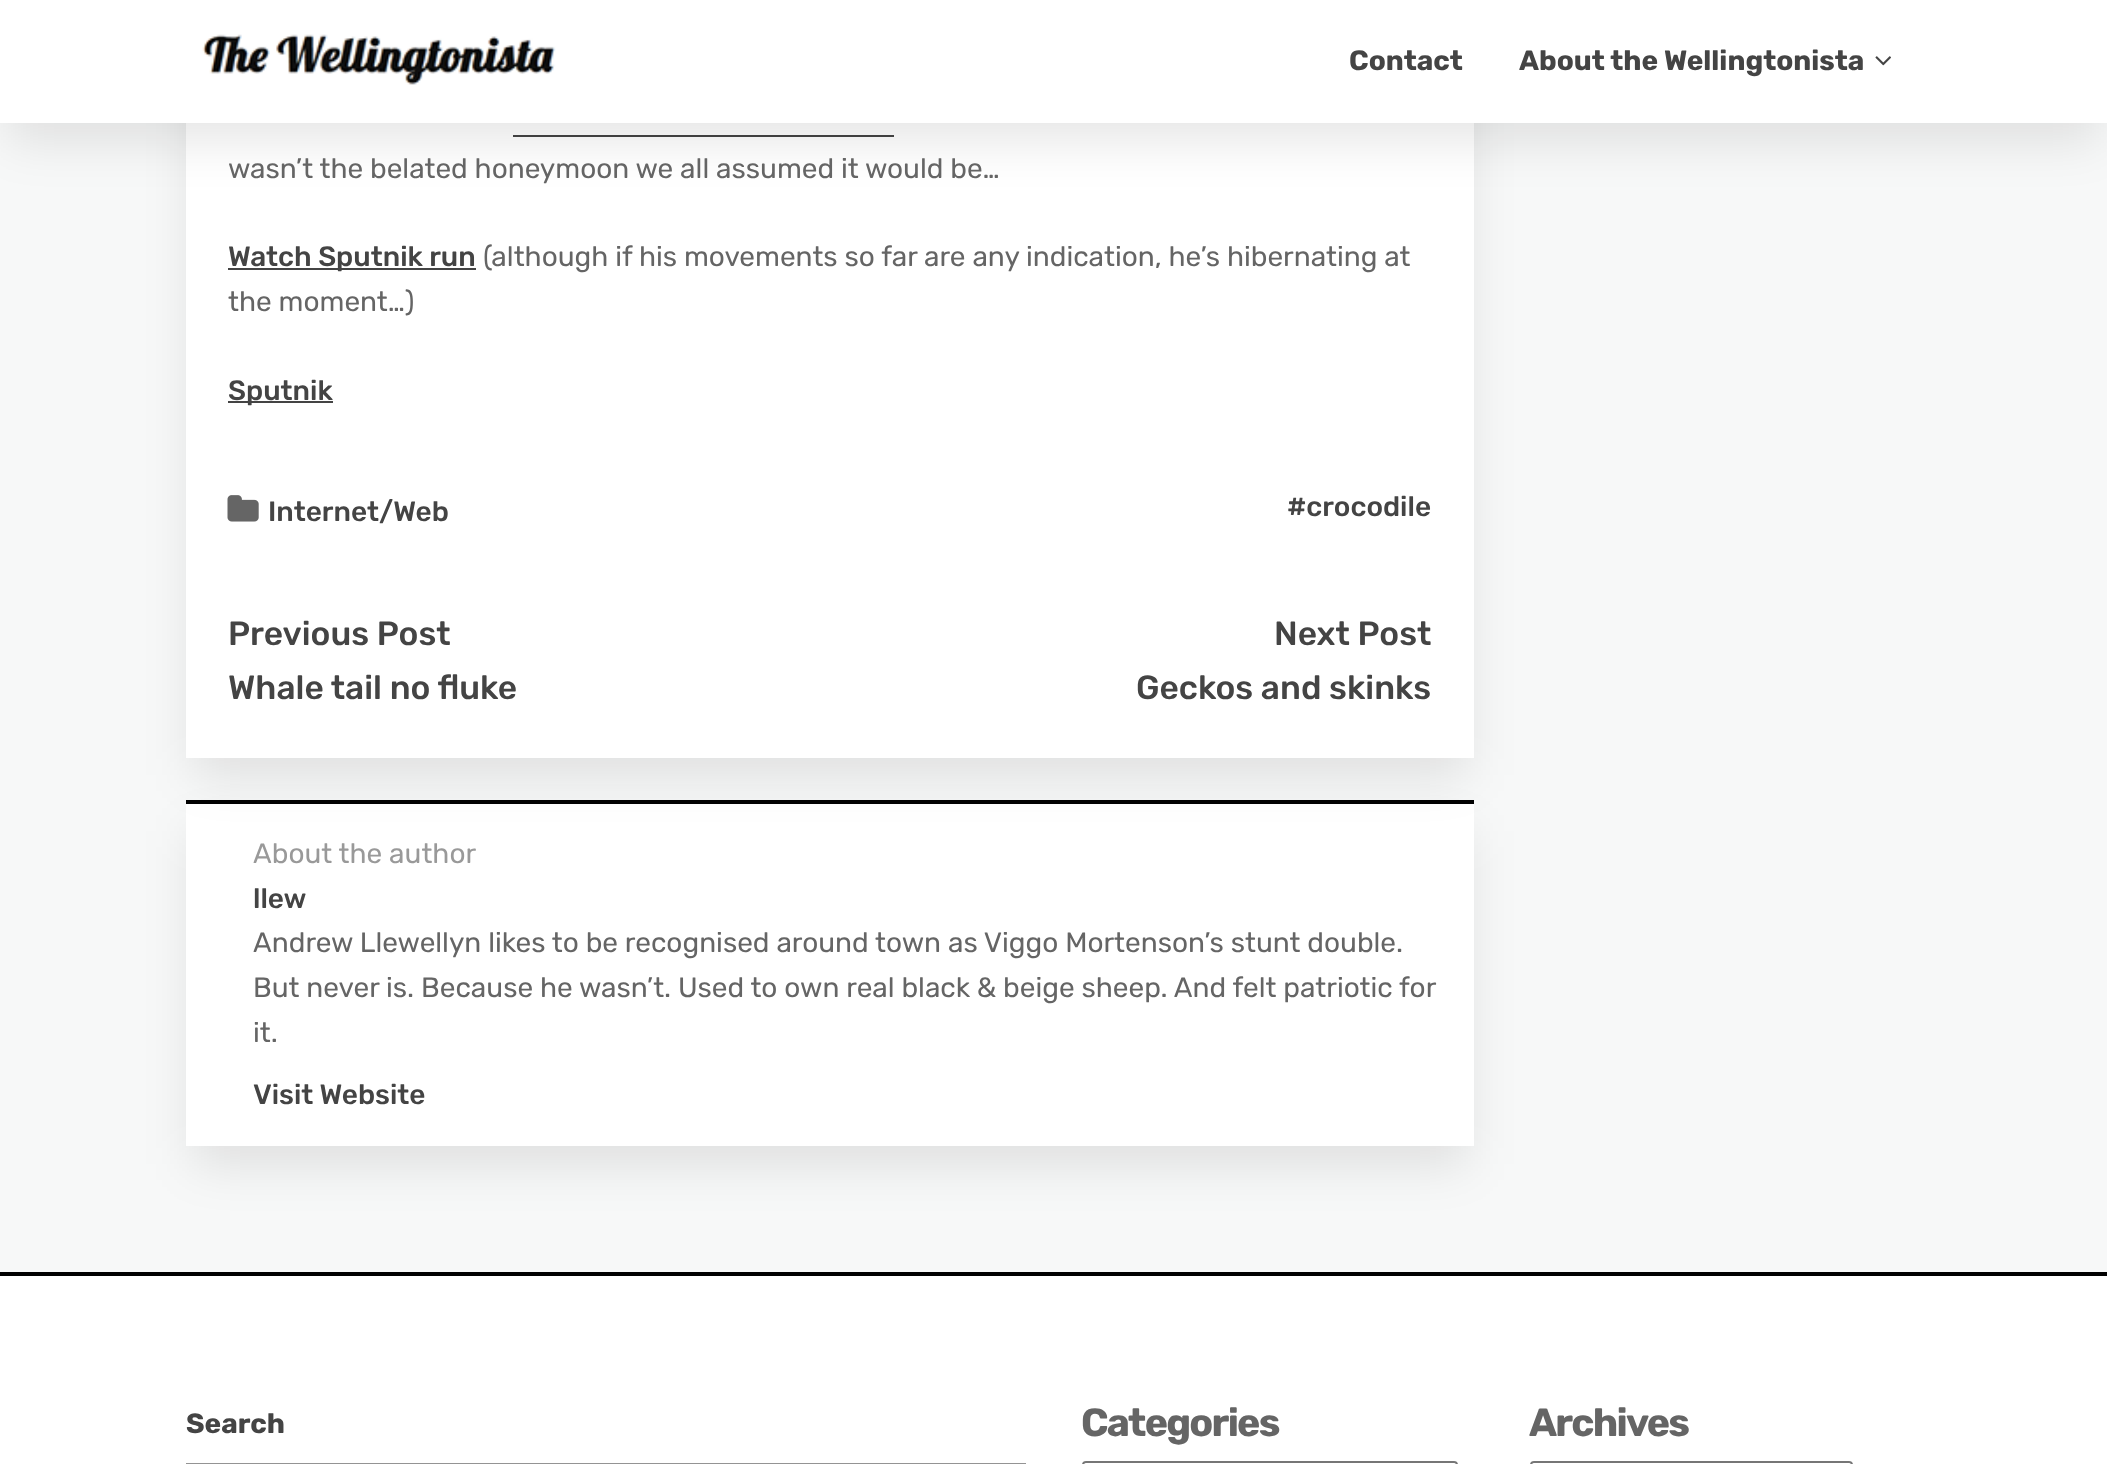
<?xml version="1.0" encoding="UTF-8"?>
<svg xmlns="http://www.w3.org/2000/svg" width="2107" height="1464">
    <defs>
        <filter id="blur1" x="-50%" y="-200%" width="200%" height="500%"><feGaussianBlur stdDeviation="24.5"/></filter>
    </defs>
    <rect width="100%" height="100%" fill="#F7F8F8"/>
    <rect x="193" y="831" width="1274" height="333" fill="#0E1114" fill-opacity="0.1" filter="url(#blur1)"/>
    <rect x="186" y="804" width="1288" height="342" fill="#FFFFFF"/>
    <rect x="186" y="800" width="1288" height="4" fill="#000000"/>
    <rect x="193" y="-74" width="1274" height="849" fill="#0E1114" fill-opacity="0.1" filter="url(#blur1)"/>
    <rect x="186" y="123" width="1288" height="635" fill="#FFFFFF"/>
    <rect x="513" y="135" width="381" height="2" fill="#444444"/>
    <rect x="7" y="32" width="2093" height="108" fill="#0E1114" fill-opacity="0.1" filter="url(#blur1)"/>
    <rect x="0" y="0" width="2107" height="123" fill="#FFFFFF"/>
    <image x="202" y="34" width="354" height="51" href="img_01.png"/>
    <text x="1349" y="70" font-family="Rubik" font-size="28" font-weight="700" fill="#444444">Contact</text>
    <text x="1519" y="70" font-family="Rubik" font-size="28" font-weight="700" fill="#444444">About the Wellingtonista</text>
    <image x="1875" y="56" width="16" height="10" href="img_02.png"/>
    <text x="228" y="178" font-family="Rubik" font-size="28" fill="#656565">wasn’t the belated honeymoon we all assumed it would be…</text>
    <rect x="228" y="268" width="248" height="2" fill="#444444"/>
    <text x="228" y="266" font-family="Rubik" font-size="28" font-weight="500" fill="#444444">Watch Sputnik run</text>
    <text x="483" y="266" font-family="Rubik" font-size="28" fill="#656565">(although if his movements so far are any indication, he’s hibernating at</text>
    <text x="228" y="311" font-family="Rubik" font-size="28" fill="#656565">the moment…)</text>
    <rect x="228" y="401" width="105" height="2" fill="#444444"/>
    <text x="228" y="400" font-family="Rubik" font-size="28" font-weight="500" fill="#444444">Sputnik</text>
    <image x="227" y="495" width="32" height="27" href="img_03.png"/>
    <text x="268" y="521" font-family="Rubik" font-size="28" font-weight="500" fill="#444444">Internet/Web</text>
    <text x="1287" y="516" font-family="Rubik" font-size="28" font-weight="500" fill="#444444">#crocodile</text>
    <text font-family="Rubik" font-size="33.5" font-weight="500" fill="#444444">
        <tspan x="228" y="645">Previous Post</tspan>
        <tspan x="228" y="699">Whale tail no fluke</tspan>
    </text>
    <text x="1274" y="645" font-family="Rubik" font-size="33.5" font-weight="500" fill="#444444">Next Post</text>
    <text x="1136" y="699" font-family="Rubik" font-size="33.5" font-weight="500" fill="#444444">Geckos and skinks</text>
    <text x="253" y="863" font-family="Rubik" font-size="28" fill="#999999">About the author</text>
    <text x="253" y="908" font-family="Rubik" font-size="28" font-weight="500" fill="#444444">llew</text>
    <text font-family="Rubik" font-size="28" fill="#656565">
        <tspan x="253" y="952">Andrew Llewellyn likes to be recognised around town as Viggo Mortenson’s stunt double.</tspan>
        <tspan x="253" y="997">But never is. Because he wasn’t. Used to own real black &amp; beige sheep. And felt patriotic for</tspan>
        <tspan x="253" y="1042">it.</tspan>
    </text>
    <text x="253" y="1104" font-family="Rubik" font-size="28" font-weight="500" fill="#444444">Visit Website</text>
    <rect x="0" y="1276" width="2107" height="188" fill="#FFFFFF"/>
    <rect x="0" y="1272" width="2107" height="4" fill="#000000"/>
    <text x="186" y="1433" font-family="Rubik" font-size="28" font-weight="700" fill="#444444">Search</text>
    <rect x="187" y="1464" width="838" height="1" fill="none" stroke="#949494" stroke-width="2"/>
    <text x="1081" y="1436" font-family="Rubik" font-size="39.25" font-weight="700" letter-spacing="-1.75" fill="#656565">Categories</text>
    <rect x="1083" y="1462" width="374" height="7" rx="3" fill="none" stroke="#767676" stroke-width="2"/>
    <text x="1529" y="1436" font-family="Rubik" font-size="39.25" font-weight="700" letter-spacing="-1.75" fill="#656565">Archives</text>
    <rect x="1531" y="1462" width="321" height="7" rx="3" fill="none" stroke="#767676" stroke-width="2"/>
</svg>
